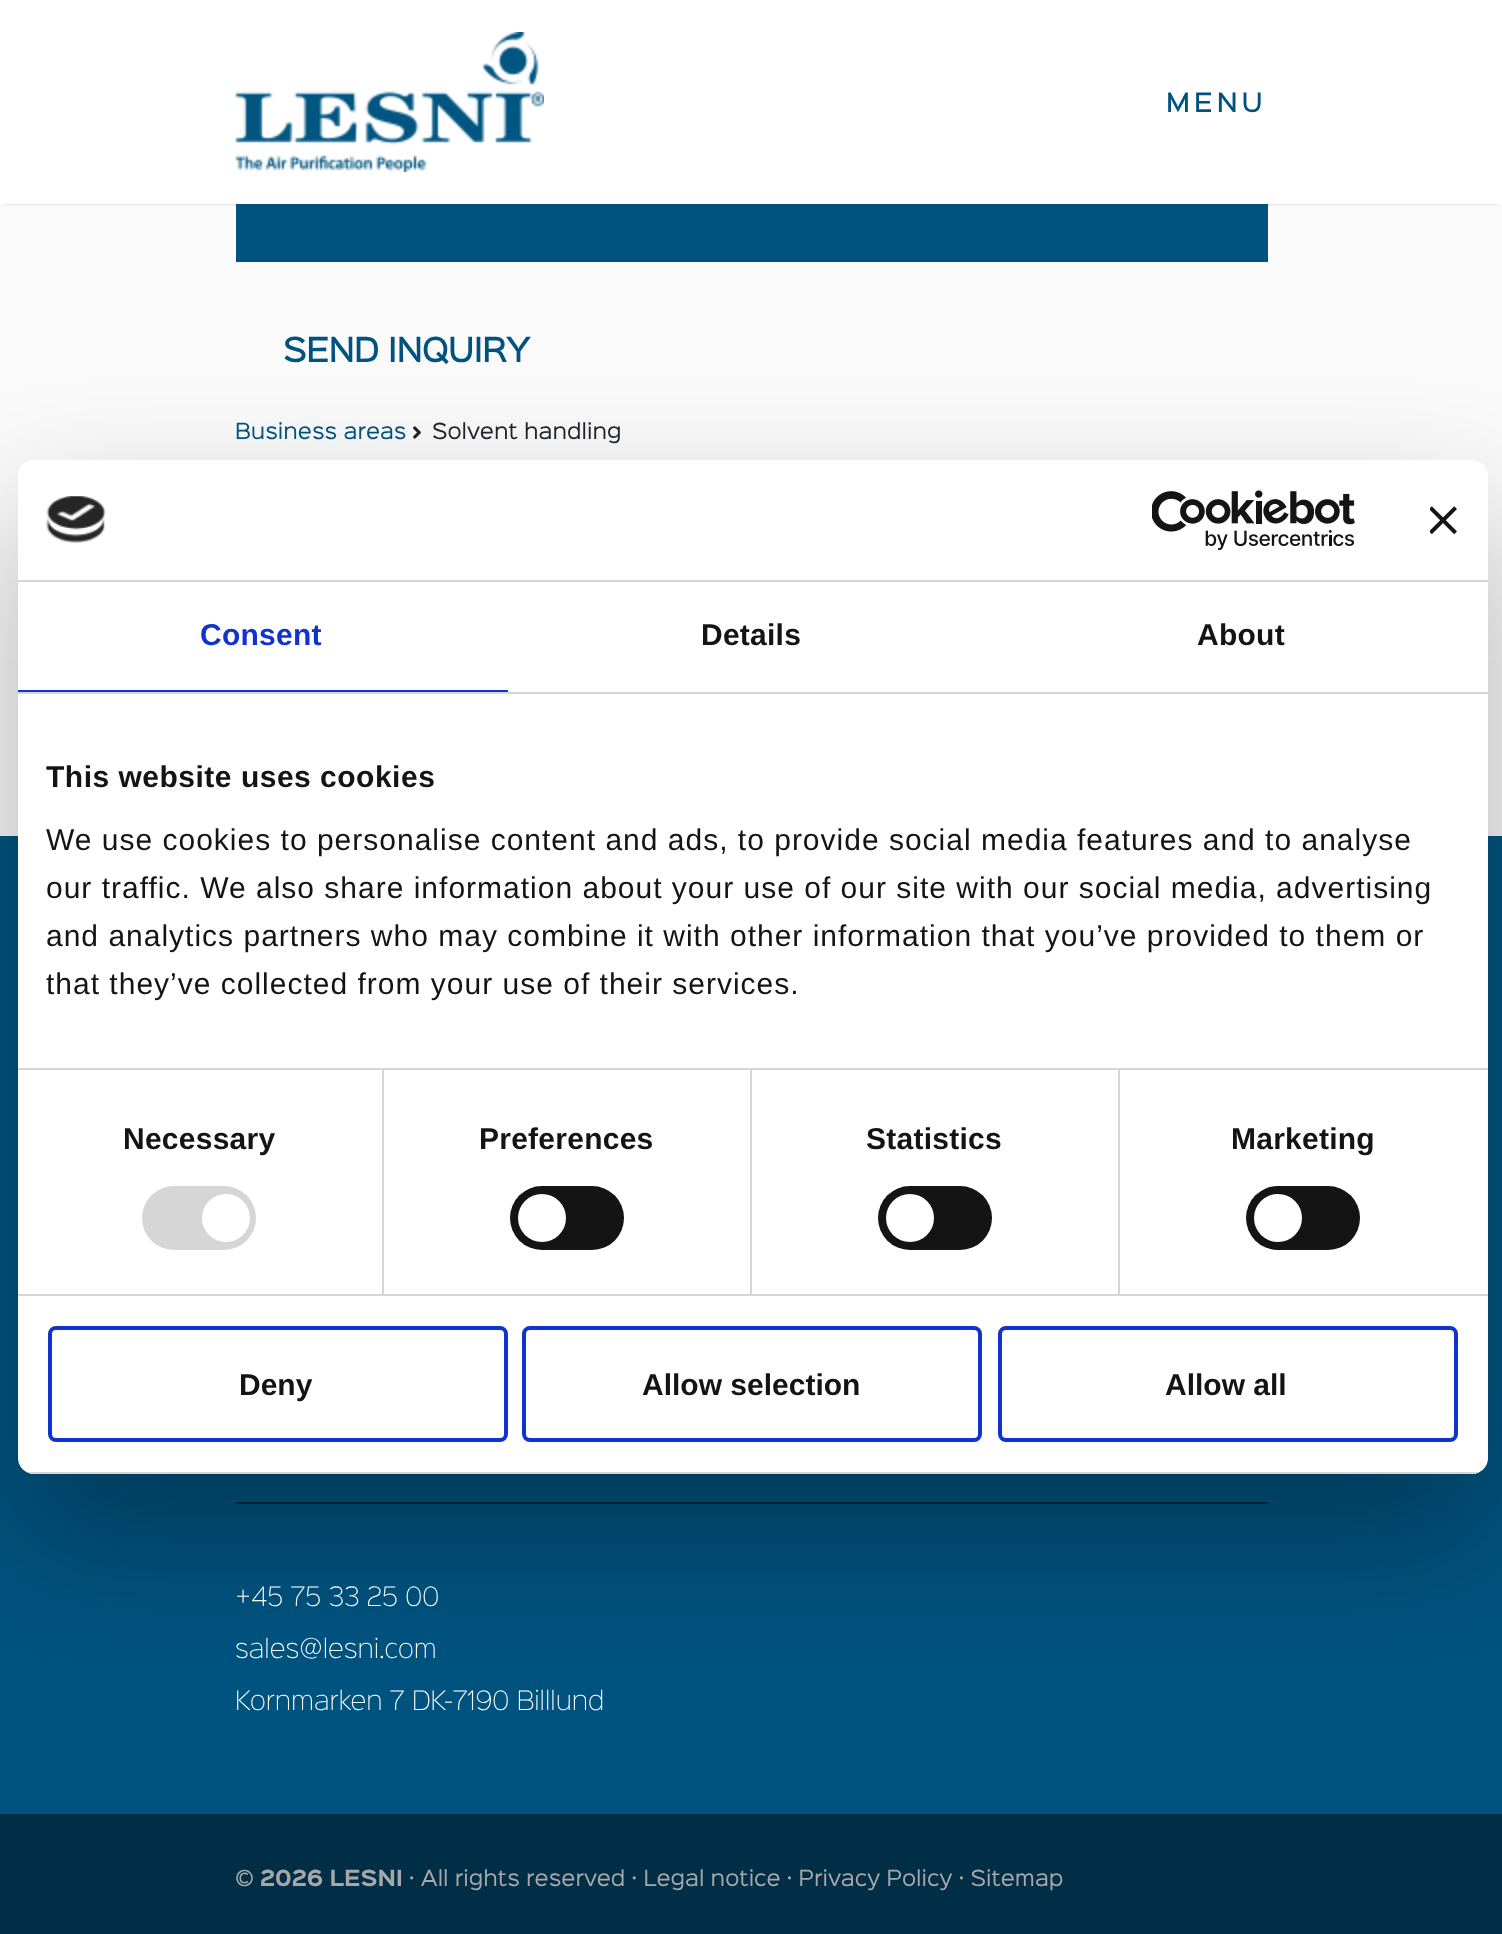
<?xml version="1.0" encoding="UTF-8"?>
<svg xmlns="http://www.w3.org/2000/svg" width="1502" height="1934">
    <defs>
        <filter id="blur1" x="-50%" y="-200%" width="200%" height="500%"><feGaussianBlur stdDeviation="1"/></filter>
        <filter id="blur2" x="-50%" y="-200%" width="200%" height="500%"><feGaussianBlur stdDeviation="68"/></filter>
        <clipPath id="clip1"><rect x="18" y="460" width="1470" height="1014" rx="16"/></clipPath>
    </defs>
    <rect width="100%" height="100%" fill="#FBFAFA"/>
    <rect x="236" y="204" width="1032" height="58" fill="#00537F"/>
    <rect x="4" y="8" width="1494" height="196" fill="#000000" fill-opacity="0.2" filter="url(#blur1)"/>
    <rect x="0" y="0" width="1502" height="204" fill="#FFFFFF"/>
    <image x="235" y="32" width="309" height="140" href="img_01.png"/>
    <text x="1166" y="112" font-family="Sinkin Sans" font-size="24" font-weight="500" letter-spacing="4" fill="#00537F">MENU</text>
    <text x="283" y="362" font-family="'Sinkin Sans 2'" font-size="30" font-weight="700" fill="#00537F">SEND INQUIRY</text>
    <text x="235" y="439" font-family="Sinkin Sans" font-size="20" fill="#00537F">Business areas</text>
    <image x="413" y="426" width="8" height="13" href="img_02.png"/>
    <text x="432" y="439" font-family="Sinkin Sans" font-size="20" fill="#212529">Solvent handling</text>
    <rect x="0" y="836" width="1502" height="978" fill="#00537F"/>
    <rect x="236" y="1502" width="1032" height="2" fill="#002E46"/>
    <rect x="18" y="524" width="1470" height="1014" rx="16" fill="#000000" fill-opacity="0.3" filter="url(#blur2)"/>
    <rect x="18" y="460" width="1470" height="1014" rx="16" fill="#FFFFFF"/>
    <rect x="18" y="580" width="1470" height="2" fill="#D6D6D6"/>
    <image x="46" y="496" width="60" height="47" href="img_03.png"/>
    <image x="1152" y="490" width="203" height="60" href="img_04.png"/>
    <image x="1430" y="506" width="27" height="28" href="img_05.png"/>
    <rect x="18" y="692" width="1470" height="2" fill="#D6D6D6"/>
    <rect x="18" y="690" width="490" height="2" fill="#1032CF"/>
    <text x="200" y="645" font-family="Liberation Sans" font-size="30" font-weight="700" letter-spacing="0.25" fill="#1032CF">Consent</text>
    <text x="701" y="645" font-family="Liberation Sans" font-size="30" font-weight="700" letter-spacing="0.25" fill="#141414">Details</text>
    <text x="1197" y="645" font-family="Liberation Sans" font-size="30" font-weight="700" letter-spacing="0.25" fill="#141414">About</text>
    <rect x="18" y="1068" width="1470" height="2" fill="#D6D6D6"/>
    <text x="46" y="787" font-family="Liberation Sans" font-size="30" font-weight="700" letter-spacing="0.5" fill="#141414">This website uses cookies</text>
    <text font-family="Liberation Sans" font-size="30" letter-spacing="1" fill="#141414">
        <tspan x="46" y="850">We use cookies to personalise content and ads, to provide social media features and to analyse</tspan>
        <tspan x="46" y="898">our traffic. We also share information about your use of our site with our social media, advertising</tspan>
        <tspan x="46" y="946">and analytics partners who may combine it with other information that you’ve provided to them or</tspan>
        <tspan x="46" y="994">that they’ve collected from your use of their services.</tspan>
    </text>
    <rect x="18" y="1294" width="1470" height="2" fill="#D6D6D6"/>
    <rect x="382" y="1070" width="2" height="224" fill="#D6D6D6"/>
    <text x="123" y="1149" font-family="Liberation Sans" font-size="30" font-weight="700" letter-spacing="0.25" fill="#141414">Necessary</text>
    <rect x="142" y="1186" width="114" height="64" rx="32" fill="#D6D6D6"/>
    <circle cx="226" cy="1218" r="24" fill="#FFFFFF"/>
    <rect x="750" y="1070" width="2" height="224" fill="#D6D6D6"/>
    <text x="479" y="1149" font-family="Liberation Sans" font-size="30" font-weight="700" letter-spacing="0.25" fill="#141414">Preferences</text>
    <rect x="510" y="1186" width="114" height="64" rx="32" fill="#141414"/>
    <circle cx="542" cy="1218" r="24" fill="#FFFFFF"/>
    <rect x="1118" y="1070" width="2" height="224" fill="#D6D6D6"/>
    <text x="866" y="1149" font-family="Liberation Sans" font-size="30" font-weight="700" letter-spacing="0.25" fill="#141414">Statistics</text>
    <rect x="878" y="1186" width="114" height="64" rx="32" fill="#141414"/>
    <circle cx="910" cy="1218" r="24" fill="#FFFFFF"/>
    <text x="1231" y="1149" font-family="Liberation Sans" font-size="30" font-weight="700" letter-spacing="0.25" fill="#141414">Marketing</text>
    <rect x="1246" y="1186" width="114" height="64" rx="32" fill="#141414"/>
    <circle cx="1278" cy="1218" r="24" fill="#FFFFFF"/>
    <g clip-path="url(#clip1)">
        <rect x="18" y="1472" width="1470" height="2" fill="#D6D6D6"/>
    </g>
    <rect x="50" y="1328" width="456" height="112" rx="6" fill="none" stroke="#1032CF" stroke-width="4"/>
    <text x="239" y="1395" font-family="Liberation Sans" font-size="30" font-weight="700" fill="#141414">Deny</text>
    <rect x="524" y="1328" width="456" height="112" rx="6" fill="none" stroke="#1032CF" stroke-width="4"/>
    <text x="642" y="1395" font-family="Liberation Sans" font-size="30" font-weight="700" fill="#141414">Allow selection</text>
    <rect x="1000" y="1328" width="456" height="112" rx="6" fill="none" stroke="#1032CF" stroke-width="4"/>
    <text x="1165" y="1395" font-family="Liberation Sans" font-size="30" font-weight="700" fill="#141414">Allow all</text>
    <text x="235" y="1606" font-family="Sinkin Sans" font-size="24" font-weight="300" fill="#FFFFFF">+45 75 33 25 00</text>
    <text x="235" y="1658" font-family="Sinkin Sans" font-size="24" font-weight="300" fill="#FFFFFF">sales@lesni.com</text>
    <text x="235" y="1710" font-family="Sinkin Sans" font-size="24" font-weight="300" fill="#FFFFFF">Kornmarken 7 DK-7190 Billlund</text>
    <rect x="0" y="1814" width="1502" height="120" fill="#002E46"/>
    <text x="235" y="1886" font-family="Sinkin Sans" font-size="20" fill="#A8A7A7">©</text>
    <text x="260" y="1886" font-family="Sinkin Sans" font-size="20" font-weight="700" fill="#A8A7A7">2026 LESNI</text>
    <text x="409" y="1886" font-family="Sinkin Sans" font-size="20" fill="#A8A7A7">· All rights reserved · Legal notice · Privacy Policy · Sitemap</text>
</svg>
